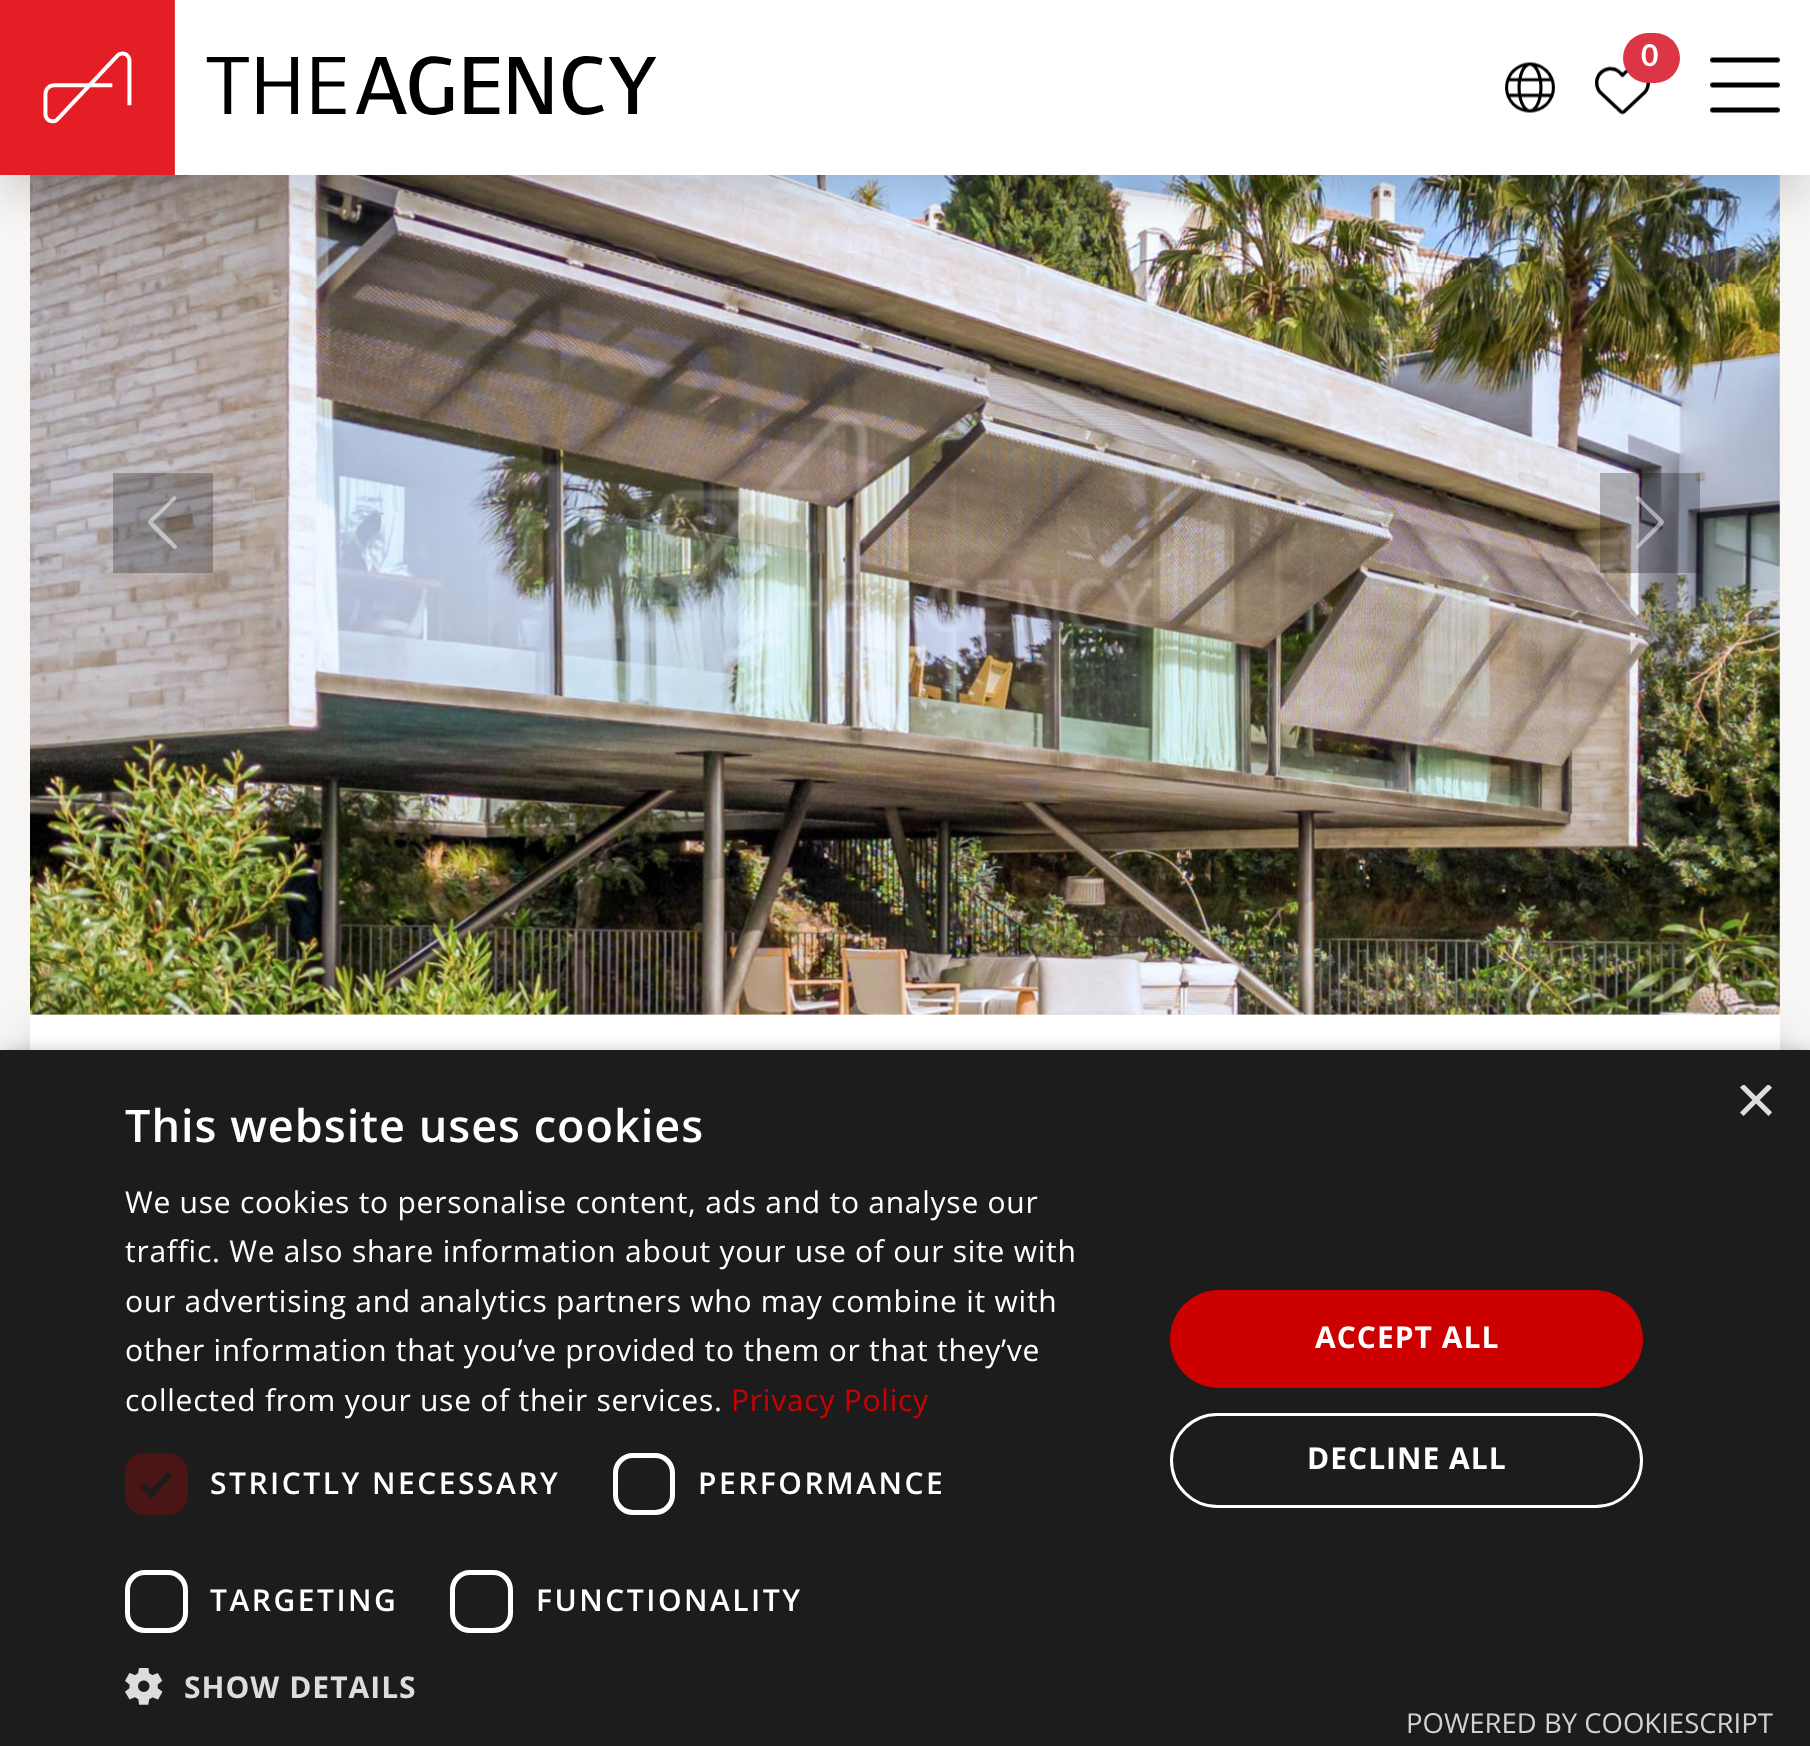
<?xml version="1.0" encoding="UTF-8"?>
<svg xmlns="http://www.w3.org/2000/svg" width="1810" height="1746">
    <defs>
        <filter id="blur1" x="-50%" y="-200%" width="200%" height="500%"><feGaussianBlur stdDeviation="20"/></filter>
        <filter id="blur2" x="-50%" y="-200%" width="200%" height="500%"><feGaussianBlur stdDeviation="10"/></filter>
        <clipPath id="clip1"><rect x="1735" y="1085" width="38" height="38"/></clipPath>
    </defs>
    <rect width="100%" height="100%" fill="#F7F6F4"/>
    <rect x="30" y="1035" width="1750" height="568" fill="#000000" fill-opacity="0.15" filter="url(#blur1)"/>
    <image x="30" y="175" width="1750" height="840" href="img_05.png"/>
    <rect x="0" y="20" width="1810" height="175" fill="#000000" fill-opacity="0.15" filter="url(#blur1)"/>
    <rect x="0" y="0" width="1810" height="175" fill="#FFFFFF"/>
    <image x="0" y="0" width="657" height="175" href="img_01.png"/>
    <image x="1505" y="62" width="50" height="51" href="img_02.png"/>
    <image x="1595" y="66" width="55" height="49" href="img_03.png"/>
    <rect x="1623" y="33" width="57" height="50" rx="25" fill="#DC3545"/>
    <text x="1641" y="66" font-family="Lato" font-size="30" font-weight="700" fill="#FFFFFF">0</text>
    <image x="1710" y="57" width="70" height="56" href="img_04.png"/>
    <rect x="113" y="473" width="100" height="100" fill="#000000" fill-opacity="0.25"/>
    <path d="M 176 497 C 178 499 173 503 172 503 L 153 522 L 177 546 C 177 548 176 549 174 549 L 169 544 C 166 541 148 525 148 522 C 148 520 155 514 157 513 L 169 501 C 170 500 174 494 176 497 Z" fill="#FFFFFF" fill-opacity="0.5"/>
    <rect x="1600" y="473" width="100" height="100" fill="#000000" fill-opacity="0.25"/>
    <path d="M 1636 497 C 1639 494 1643 500 1643 501 L 1656 513 C 1657 514 1664 520 1664 522 C 1664 525 1646 541 1643 544 L 1638 549 C 1637 549 1635 548 1636 546 L 1659 522 L 1640 503 C 1640 503 1634 499 1636 497 Z" fill="#FFFFFF" fill-opacity="0.5"/>
    <rect x="30" y="1015" width="1750" height="35" fill="#FFFFFF"/>
    <rect x="3" y="1055" width="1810" height="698" fill="#000000" fill-opacity="0.35" filter="url(#blur2)"/>
    <rect x="0" y="1050" width="1810" height="696" fill="#1C1C1C"/>
    <g clip-path="url(#clip1)">
        <text x="1735" y="1124" font-family="Liberation Sans" font-size="72" fill="#DDDDDD">×</text>
    </g>
    <text x="125" y="1142" font-family="Open Sans" font-size="45" font-weight="600" letter-spacing="1" fill="#FFFFFF">This website uses cookies</text>
    <text font-family="Open Sans" font-size="30" letter-spacing="0.75" fill="#FFFFFF">
        <tspan x="125" y="1213">We use cookies to personalise content, ads and to analyse our</tspan>
        <tspan x="125" y="1262">traffic. We also share information about your use of our site with</tspan>
        <tspan x="125" y="1312">our advertising and analytics partners who may combine it with</tspan>
        <tspan x="125" y="1361">other information that you’ve provided to them or that they’ve</tspan>
        <tspan x="125" y="1411">collected from your use of their services.</tspan>
    </text>
    <text x="731" y="1411" font-family="Open Sans" font-size="30" letter-spacing="0.75" fill="#CC0000">Privacy Policy</text>
    <rect x="125" y="1453" width="63" height="62" rx="20" fill="#4A1515"/>
    <path d="M 142.5 1485 L 151 1493.5 L 170 1474" fill="none" stroke="#1C1C1C" stroke-width="6.6"/>
    <text x="210" y="1494" font-family="Open Sans" font-size="30" font-weight="600" letter-spacing="2.5" fill="#FFFFFF">STRICTLY NECESSARY</text>
    <rect x="615.5" y="1455.5" width="57" height="57" rx="17.5" fill="none" stroke="#FFFFFF" stroke-width="5"/>
    <text x="698" y="1494" font-family="Open Sans" font-size="30" font-weight="600" letter-spacing="2.5" fill="#FFFFFF">PERFORMANCE</text>
    <rect x="127.5" y="1572.5" width="58" height="58" rx="17.5" fill="none" stroke="#FFFFFF" stroke-width="5"/>
    <text x="210" y="1611" font-family="Open Sans" font-size="30" font-weight="600" letter-spacing="2.5" fill="#FFFFFF">TARGETING</text>
    <rect x="452.5" y="1572.5" width="58" height="58" rx="17.5" fill="none" stroke="#FFFFFF" stroke-width="5"/>
    <text x="536" y="1611" font-family="Open Sans" font-size="30" font-weight="600" letter-spacing="2.5" fill="#FFFFFF">FUNCTIONALITY</text>
    <image x="125" y="1668" width="38" height="37" href="img_06.png"/>
    <text x="184" y="1698" font-family="Open Sans" font-size="30" font-weight="700" letter-spacing="1" fill="#DDDDDD">SHOW DETAILS</text>
    <rect x="1170" y="1290" width="473" height="98" rx="49" fill="#CC0000"/>
    <text x="1315" y="1348" font-family="Open Sans" font-size="30" font-weight="700" letter-spacing="1" fill="#FFFFFF">ACCEPT ALL</text>
    <rect x="1171.5" y="1414.5" width="470" height="92" rx="46" fill="none" stroke="#FFFFFF" stroke-width="3"/>
    <text x="1307" y="1469" font-family="Open Sans" font-size="30" font-weight="700" letter-spacing="1" fill="#FFFFFF">DECLINE ALL</text>
    <text x="1406" y="1733" font-family="Open Sans" font-size="27.5" fill="#D2D2D2">POWERED BY COOKIESCRIPT</text>
</svg>
